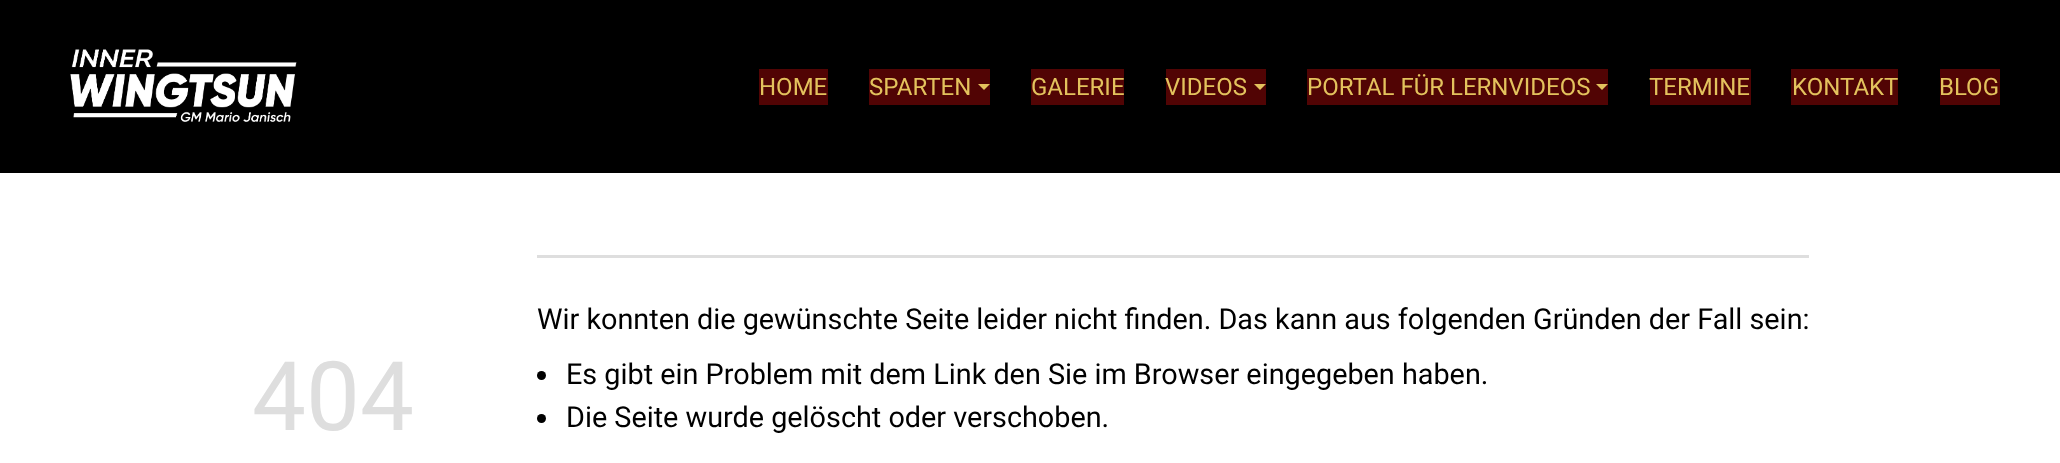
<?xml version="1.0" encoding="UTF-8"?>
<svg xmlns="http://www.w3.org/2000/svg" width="2060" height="463">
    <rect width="100%" height="100%" fill="#FFFFFF"/>
    <rect x="0" y="0" width="2060" height="173" fill="#000000"/>
    <image x="70" y="49" width="227" height="73" href="img_01.png"/>
    <rect x="759" y="69" width="69" height="36" fill="#510404"/>
    <text x="759" y="95" font-family="Roboto" font-size="24" fill="#E3C25D">HOME</text>
    <rect x="869" y="69" width="121" height="36" fill="#510404"/>
    <text x="869" y="95" font-family="Roboto" font-size="24" fill="#E3C25D">SPARTEN</text>
    <path d="M 978 84 H 990 L 984 90 Z" fill="#E3C25D"/>
    <rect x="1031" y="69" width="93" height="36" fill="#510404"/>
    <text x="1031" y="95" font-family="Roboto" font-size="24" fill="#E3C25D">GALERIE</text>
    <rect x="1166" y="69" width="100" height="36" fill="#510404"/>
    <text x="1165" y="95" font-family="Roboto" font-size="24" fill="#E3C25D">VIDEOS</text>
    <path d="M 1254 84 H 1266 L 1260 90 Z" fill="#E3C25D"/>
    <rect x="1307" y="69" width="301" height="36" fill="#510404"/>
    <text x="1307" y="95" font-family="Roboto" font-size="24" fill="#E3C25D">PORTAL FÜR LERNVIDEOS</text>
    <path d="M 1596 84 H 1608 L 1602 90 Z" fill="#E3C25D"/>
    <rect x="1650" y="69" width="101" height="36" fill="#510404"/>
    <text x="1649" y="95" font-family="Roboto" font-size="24" fill="#E3C25D">TERMINE</text>
    <rect x="1791" y="69" width="107" height="36" fill="#510404"/>
    <text x="1792" y="95" font-family="Roboto" font-size="24" fill="#E3C25D">KONTAKT</text>
    <rect x="1940" y="69" width="60" height="36" fill="#510404"/>
    <text x="1939" y="95" font-family="Roboto" font-size="24" fill="#E3C25D">BLOG</text>
    <text x="252" y="430" font-family="Roboto" font-size="96" fill="#DEDEDE">404</text>
    <rect x="537" y="255" width="1272" height="3" fill="#DEDEDE"/>
    <text x="537" y="329" font-family="Roboto" font-size="28.8" fill="#000000">Wir konnten die gewünschte Seite leider nicht finden. Das kann aus folgenden Gründen der Fall sein:</text>
    <circle cx="541.5" cy="375.5" r="4.5" fill="#000000"/>
    <text x="566" y="384" font-family="Roboto" font-size="28.8" fill="#000000">Es gibt ein Problem mit dem Link den Sie im Browser eingegeben haben.</text>
    <circle cx="541.5" cy="418.5" r="4.5" fill="#000000"/>
    <text x="566" y="427" font-family="Roboto" font-size="28.8" fill="#000000">Die Seite wurde gelöscht oder verschoben.</text>
</svg>
